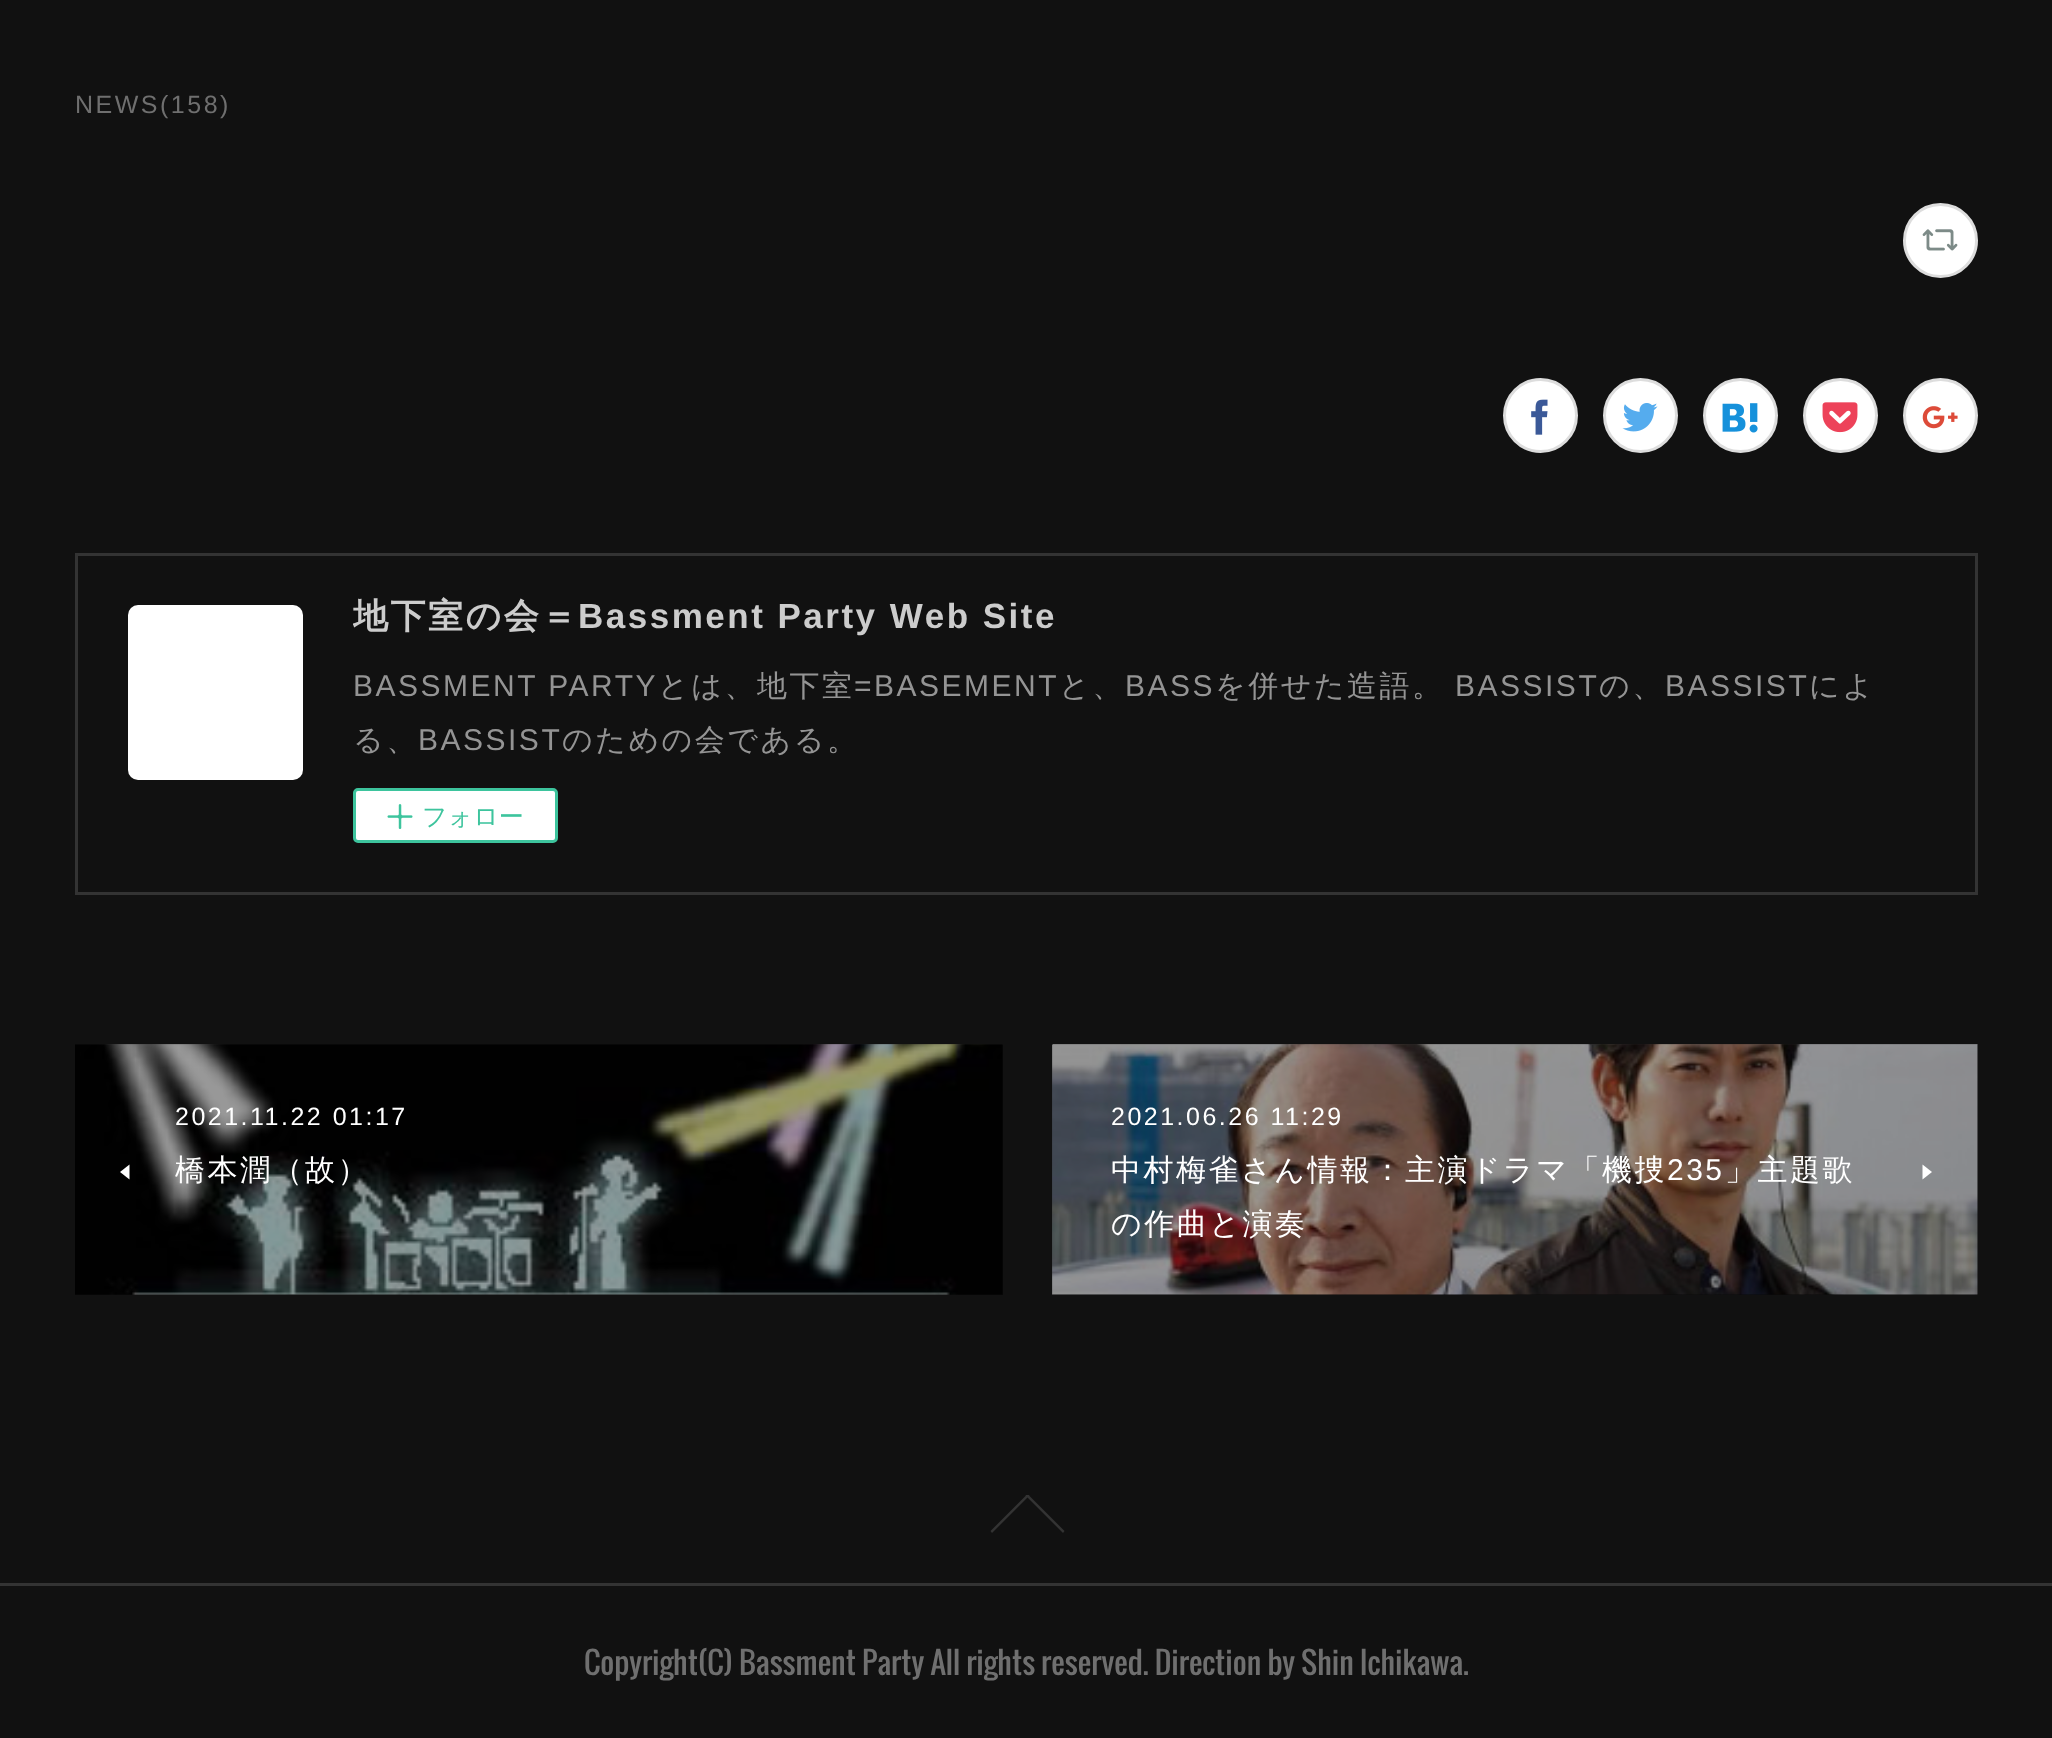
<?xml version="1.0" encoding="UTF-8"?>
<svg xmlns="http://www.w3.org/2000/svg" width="2052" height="1738">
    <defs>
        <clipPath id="clip1"><rect x="353" y="593" width="705" height="50"/></clipPath>
        <clipPath id="clip2"><rect x="0" y="1495" width="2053" height="55"/></clipPath>
    </defs>
    <rect width="100%" height="100%" fill="#111111"/>
    <rect x="1053" y="1045" width="925" height="250" fill="#0A0A0A"/>
    <rect x="75" y="1045" width="928" height="250" fill="#0A0A0A"/>
    <text x="75" y="113" font-family="Liberation Sans" font-size="25" letter-spacing="2.5" fill="#6F6F6F">NEWS(158)</text>
    <circle cx="1940.5" cy="240.5" r="36" fill="#FFFFFF" stroke="#DDDDDD" stroke-width="3"/>
    <image x="1922" y="229" width="36" height="22" href="img_01.png"/>
    <circle cx="1540.5" cy="415.5" r="36" fill="#FFFFFF" stroke="#DDDDDD" stroke-width="3"/>
    <image x="1531" y="399" width="17" height="36" href="img_02.png"/>
    <circle cx="1640.5" cy="415.5" r="36" fill="#FFFFFF" stroke="#DDDDDD" stroke-width="3"/>
    <image x="1622" y="403" width="36" height="29" href="img_03.png"/>
    <circle cx="1740.5" cy="415.5" r="36" fill="#FFFFFF" stroke="#DDDDDD" stroke-width="3"/>
    <image x="1722" y="403" width="36" height="30" href="img_04.png"/>
    <circle cx="1840.5" cy="415.5" r="36" fill="#FFFFFF" stroke="#DDDDDD" stroke-width="3"/>
    <image x="1822" y="402" width="36" height="31" href="img_05.png"/>
    <circle cx="1940.5" cy="415.5" r="36" fill="#FFFFFF" stroke="#DDDDDD" stroke-width="3"/>
    <image x="1922" y="406" width="36" height="23" href="img_06.png"/>
    <rect x="76.5" y="554.5" width="1900" height="339" fill="none" stroke="#333333" stroke-width="3"/>
    <rect x="128" y="605" width="175" height="175" rx="10" fill="#FFFFFF"/>
    <g clip-path="url(#clip1)">
        <text x="353" y="628" font-family="WenQuanYi Zen Hei" font-size="35" font-weight="700" letter-spacing="2.5" fill="#CCCCCC">地下室の会＝</text>
    </g>
    <text x="578" y="628" font-family="Liberation Sans" font-size="35" font-weight="700" letter-spacing="2.5" fill="#CCCCCC">Bassment Party Web Site</text>
    <text x="353" y="696" font-family="Liberation Sans" font-size="30" letter-spacing="2.5" fill="#949494">BASSMENT PARTY</text>
    <text x="658" y="696" font-family="WenQuanYi Zen Hei" font-size="30" font-weight="500" letter-spacing="2.5" fill="#949494">とは、地下室</text>
    <text x="854" y="696" font-family="Liberation Sans" font-size="30" letter-spacing="2.5" fill="#949494">=BASEMENT</text>
    <text x="1059" y="696" font-family="WenQuanYi Zen Hei" font-size="30" font-weight="500" letter-spacing="2.5" fill="#949494">と、</text>
    <text x="1125" y="696" font-family="Liberation Sans" font-size="30" letter-spacing="2.5" fill="#949494">BASS</text>
    <text x="1215" y="696" font-family="WenQuanYi Zen Hei" font-size="30" font-weight="500" letter-spacing="2.5" fill="#949494">を併せた造語。</text>
    <text x="1455" y="696" font-family="Liberation Sans" font-size="30" letter-spacing="2.5" fill="#949494">BASSIST</text>
    <text x="1599" y="696" font-family="WenQuanYi Zen Hei" font-size="30" font-weight="500" letter-spacing="2.5" fill="#949494">の、</text>
    <text x="1665" y="696" font-family="Liberation Sans" font-size="30" letter-spacing="2.5" fill="#949494">BASSIST</text>
    <text x="1809" y="696" font-family="WenQuanYi Zen Hei" font-size="30" font-weight="500" letter-spacing="2.5" fill="#949494">によ</text>
    <text x="353" y="750" font-family="WenQuanYi Zen Hei" font-size="30" font-weight="500" letter-spacing="2.5" fill="#949494">る、</text>
    <text x="418" y="750" font-family="Liberation Sans" font-size="30" letter-spacing="2.5" fill="#949494">BASSIST</text>
    <text x="562" y="750" font-family="WenQuanYi Zen Hei" font-size="30" font-weight="500" letter-spacing="2.5" fill="#949494">のための会である。</text>
    <rect x="354.5" y="789.5" width="202" height="52" rx="3.5" fill="#FFFFFF" stroke="#3DC49D" stroke-width="3"/>
    <image x="387" y="804" width="26" height="25" href="img_07.png"/>
    <text x="422" y="825" font-family="WenQuanYi Zen Hei" font-size="25" font-weight="500" fill="#3DC49D">フォロー</text>
    <image x="75" y="1044" width="928" height="251" href="img_08.png"/>
    <text x="175" y="1125" font-family="Liberation Sans" font-size="25" letter-spacing="2.5" fill="#FFFFFF">2021.11.22 01:17</text>
    <path d="M 129.5 1179.5 V 1164.5 L 120 1172 Z" fill="#FFFFFF"/>
    <text x="175" y="1180" font-family="WenQuanYi Zen Hei" font-size="30" font-weight="500" letter-spacing="2.5" fill="#FFFFFF">橋本潤（故）</text>
    <image x="1052" y="1044" width="926" height="251" href="img_09.png"/>
    <text x="1111" y="1125" font-family="Liberation Sans" font-size="25" letter-spacing="2.5" fill="#FFFFFF">2021.06.26 11:29</text>
    <text x="1111" y="1180" font-family="WenQuanYi Zen Hei" font-size="30" font-weight="500" letter-spacing="2.5" fill="#FFFFFF">中村梅雀さん情報：主演ドラマ「機捜</text>
    <text x="1667" y="1180" font-family="Liberation Sans" font-size="30" letter-spacing="2.5" fill="#FFFFFF">235</text>
    <text x="1725" y="1180" font-family="WenQuanYi Zen Hei" font-size="30" font-weight="500" letter-spacing="2.5" fill="#FFFFFF">」主題歌</text>
    <text x="1111" y="1234" font-family="WenQuanYi Zen Hei" font-size="30" font-weight="500" letter-spacing="2.5" fill="#FFFFFF">の作曲と演奏</text>
    <path d="M 1922.5 1164.5 V 1179.5 L 1932 1172 Z" fill="#FFFFFF"/>
    <g clip-path="url(#clip2)">
        <path d="M 990.5 1531 L 1027.5 1494 L 1029.5 1495.5 L 992 1533 Z" fill="#333333"/>
        <path d="M 1025.5 1495.5 L 1027.5 1494 L 1064.5 1531 L 1063 1533 Z" fill="#333333"/>
    </g>
    <rect x="0" y="1583" width="2052" height="3" fill="#333333"/>
    <text x="584" y="1675" font-family="Oswald" font-size="30" fill="#6F6F6F">Copyright(C) Bassment Party All rights reserved. Direction by Shin Ichikawa.</text>
</svg>
